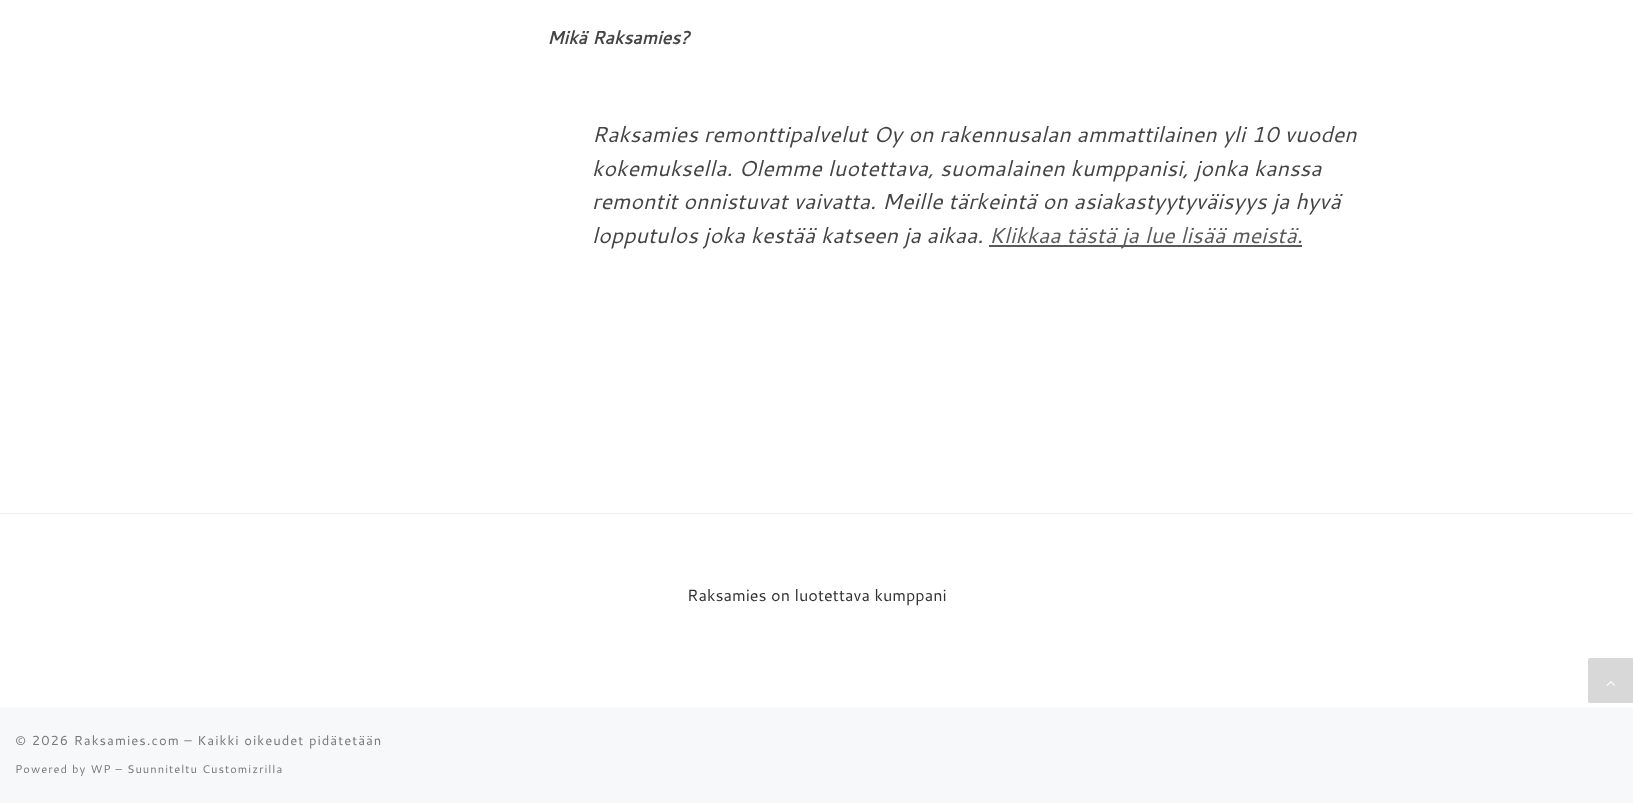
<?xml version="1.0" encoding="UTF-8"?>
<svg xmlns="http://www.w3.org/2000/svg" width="1633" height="803">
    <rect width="100%" height="100%" fill="#FFFFFF"/>
    <text x="547" y="44" font-family="Cantarell" font-size="18" font-weight="700" font-style="italic" fill="#444444">Mikä Raksamies?</text>
    <text font-family="Cantarell" font-size="21.6" font-style="italic" fill="#444444">
        <tspan x="592" y="142">Raksamies remonttipalvelut Oy on rakennusalan ammattilainen yli 10 vuoden</tspan>
        <tspan x="592" y="176">kokemuksella. Olemme luotettava, suomalainen kumppanisi, jonka kanssa</tspan>
        <tspan x="592" y="209">remontit onnistuvat vaivatta. Meille tärkeintä on asiakastyytyväisyys ja hyvä</tspan>
        <tspan x="592" y="243">lopputulos joka kestää katseen ja aikaa.</tspan>
    </text>
    <rect x="989" y="245" width="313" height="2" fill="#5A5A5A"/>
    <text x="989" y="243" font-family="Cantarell" font-size="21.6" font-style="italic" fill="#5A5A5A">Klikkaa tästä ja lue lisää meistä.</text>
    <rect x="0" y="513" width="1633" height="1" fill="#ECEEEF"/>
    <text x="687" y="601" font-family="Cantarell" font-size="16.25" fill="#303133">Raksamies on luotettava kumppani</text>
    <rect x="0" y="707" width="1633" height="96" fill="#F7F8F9"/>
    <text x="15" y="745" font-family="Cantarell" font-size="13.1" letter-spacing="1" fill="#777777">© 2026 Raksamies.com – Kaikki oikeudet pidätetään</text>
    <text x="15" y="773" font-family="Cantarell" font-size="11.2" letter-spacing="1" fill="#777777">Powered by WP – Suunniteltu Customizrilla</text>
    <rect x="1588" y="658" width="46" height="45" rx="2" fill="#D8D8D8"/>
    <image x="1606" y="681" width="9" height="5" href="img_01.png"/>
</svg>
